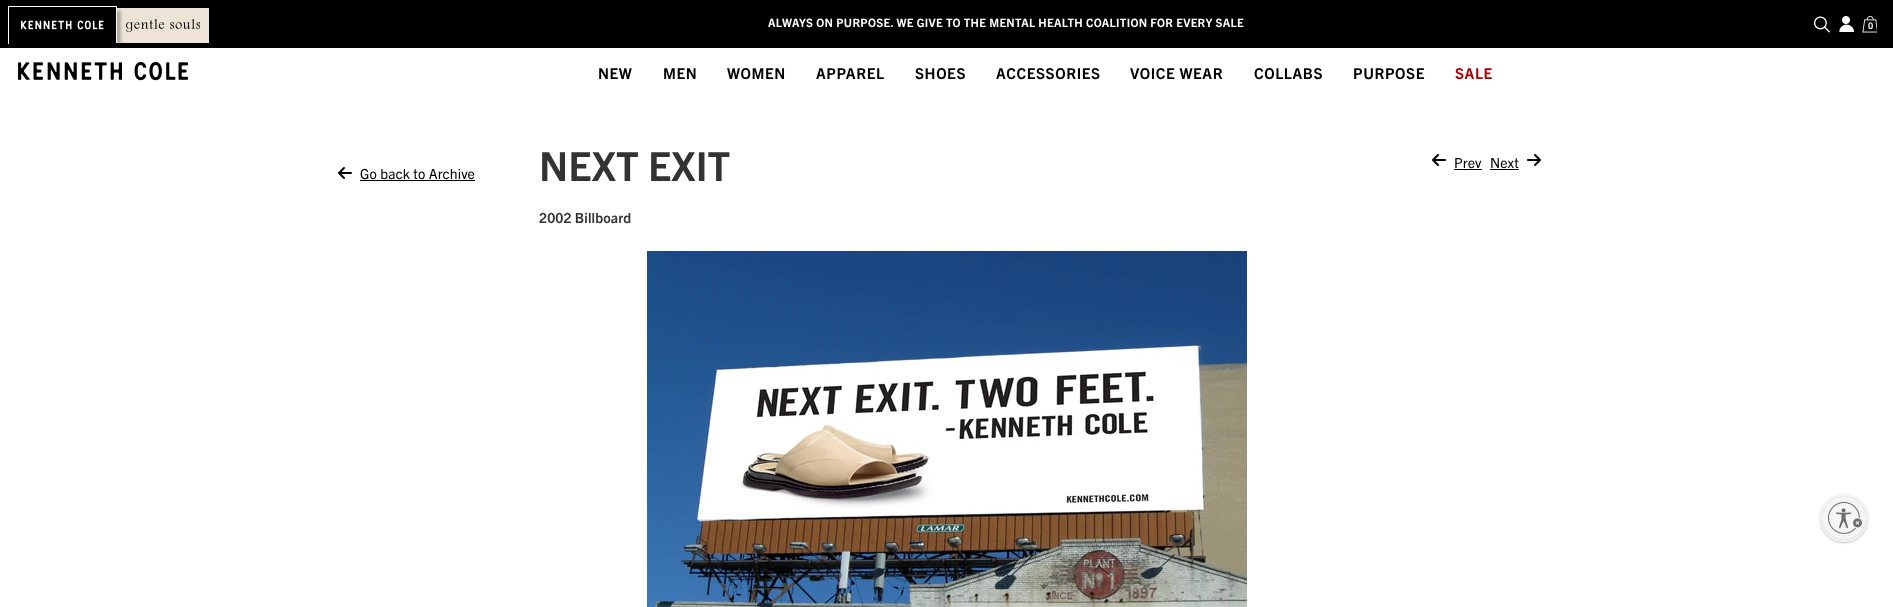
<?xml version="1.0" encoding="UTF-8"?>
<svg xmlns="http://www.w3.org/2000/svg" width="1893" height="607">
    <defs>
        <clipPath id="clip1"><path d="M 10 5 H 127 V 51 H 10 Z M 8 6 H 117 V 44 H 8 Z" clip-rule="evenodd"/></clipPath>
        <filter id="blur1" x="-50%" y="-200%" width="200%" height="500%"><feGaussianBlur stdDeviation="1.5"/></filter>
        <filter id="blur2" x="-50%" y="-200%" width="200%" height="500%"><feGaussianBlur stdDeviation="1"/></filter>
        <clipPath id="clip2"><rect x="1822" y="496" width="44" height="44" rx="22"/></clipPath>
    </defs>
    <rect width="100%" height="100%" fill="#FFFFFF"/>
    <rect x="0" y="0" width="1893" height="48" fill="#000000"/>
    <rect x="117" y="8" width="92" height="35" fill="#EDE4D6"/>
    <image x="126" y="19" width="74" height="13" href="img_02.png"/>
    <g clip-path="url(#clip1)">
        <rect x="16" y="11" width="105" height="34" fill="#000000" fill-opacity="0.25" filter="url(#blur1)"/>
    </g>
    <rect x="8" y="6" width="109" height="1" fill="#FFFFFF"/>
    <rect x="116" y="6" width="1" height="38" fill="#FFFFFF"/>
    <rect x="116" y="43" width="1" height="1" fill="#000000"/>
    <rect x="8" y="6" width="1" height="38" fill="#FFFFFF"/>
    <image x="21" y="20" width="83" height="10" href="img_01.png"/>
    <text x="768" y="27" font-family="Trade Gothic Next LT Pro" font-size="11.5" font-weight="700" letter-spacing="0.32" fill="#FFFFFF">ALWAYS ON PURPOSE. WE GIVE TO THE MENTAL HEALTH COALITION FOR EVERY SALE</text>
    <image x="1814" y="16" width="16" height="17" href="img_03.png"/>
    <image x="1839" y="16" width="15" height="16" href="img_04.png"/>
    <image x="1862" y="16" width="15" height="17" href="img_05.png"/>
    <text x="1868" y="29" font-family="Trade Gothic Next LT Pro" font-size="9" font-weight="700" fill="#FFFFFF">0</text>
    <image x="18" y="62" width="170" height="19" href="img_06.png"/>
    <text x="598" y="79" font-family="Trade Gothic Next LT Pro" font-size="15" font-weight="700" letter-spacing="0.6" fill="#000000">NEW</text>
    <text x="663" y="79" font-family="Trade Gothic Next LT Pro" font-size="15" font-weight="700" letter-spacing="0.6" fill="#000000">MEN</text>
    <text x="727" y="79" font-family="Trade Gothic Next LT Pro" font-size="15" font-weight="700" letter-spacing="0.6" fill="#000000">WOMEN</text>
    <text x="816" y="79" font-family="Trade Gothic Next LT Pro" font-size="15" font-weight="700" letter-spacing="0.6" fill="#000000">APPAREL</text>
    <text x="915" y="79" font-family="Trade Gothic Next LT Pro" font-size="15" font-weight="700" letter-spacing="0.6" fill="#000000">SHOES</text>
    <text x="996" y="79" font-family="Trade Gothic Next LT Pro" font-size="15" font-weight="700" letter-spacing="0.6" fill="#000000">ACCESSORIES</text>
    <text x="1130" y="79" font-family="Trade Gothic Next LT Pro" font-size="15" font-weight="700" letter-spacing="0.6" fill="#000000">VOICE WEAR</text>
    <text x="1254" y="79" font-family="Trade Gothic Next LT Pro" font-size="15" font-weight="700" letter-spacing="0.6" fill="#000000">COLLABS</text>
    <text x="1353" y="79" font-family="Trade Gothic Next LT Pro" font-size="15" font-weight="700" letter-spacing="0.6" fill="#000000">PURPOSE</text>
    <text x="1455" y="79" font-family="Trade Gothic Next LT Pro" font-size="15" font-weight="700" letter-spacing="0.6" fill="#AD0000">SALE</text>
    <text x="539" y="181" font-family="Trade Gothic Next LT Pro" font-size="40" font-weight="700" fill="#333333">NEXT EXIT</text>
    <text x="539" y="223" font-family="Trade Gothic Next LT Pro" font-size="14" font-weight="700" letter-spacing="0.1" fill="#333333">2002 Billboard</text>
    <image x="647" y="251" width="600" height="356" href="img_07.png"/>
    <image x="1432" y="154" width="14" height="12" href="img_08.png"/>
    <text x="1454" y="168" font-family="Trade Gothic Next LT Pro" font-size="14" letter-spacing="0.1" fill="#000000">Prev</text>
    <rect x="1454" y="169" width="28" height="1" fill="#000000"/>
    <text x="1490" y="168" font-family="Trade Gothic Next LT Pro" font-size="14" letter-spacing="0.1" fill="#000000">Next</text>
    <rect x="1490" y="169" width="29" height="1" fill="#000000"/>
    <image x="1527" y="154" width="14" height="12" href="img_09.png"/>
    <image x="338" y="167" width="14" height="12" href="img_10.png"/>
    <text x="360" y="179" font-family="Trade Gothic Next LT Pro" font-size="14" letter-spacing="0.1" fill="#000000">Go back to Archive</text>
    <rect x="360" y="180" width="115" height="1" fill="#000000"/>
    <rect x="1820" y="495" width="48" height="48" rx="24" fill="#000000" fill-opacity="0.24" filter="url(#blur2)"/>
    <circle cx="1844" cy="518" r="23" fill="none" stroke="#F5F5F5" stroke-width="2"/>
    <g clip-path="url(#clip2)">
        <rect x="1822" y="497" width="44" height="44" rx="22" fill="#000000" fill-opacity="0.24" filter="url(#blur2)"/>
    </g>
    <circle cx="1844" cy="518" r="22" fill="#F5F5F5"/>
    <image x="1828" y="502" width="34" height="32" href="img_11.png"/>
</svg>
